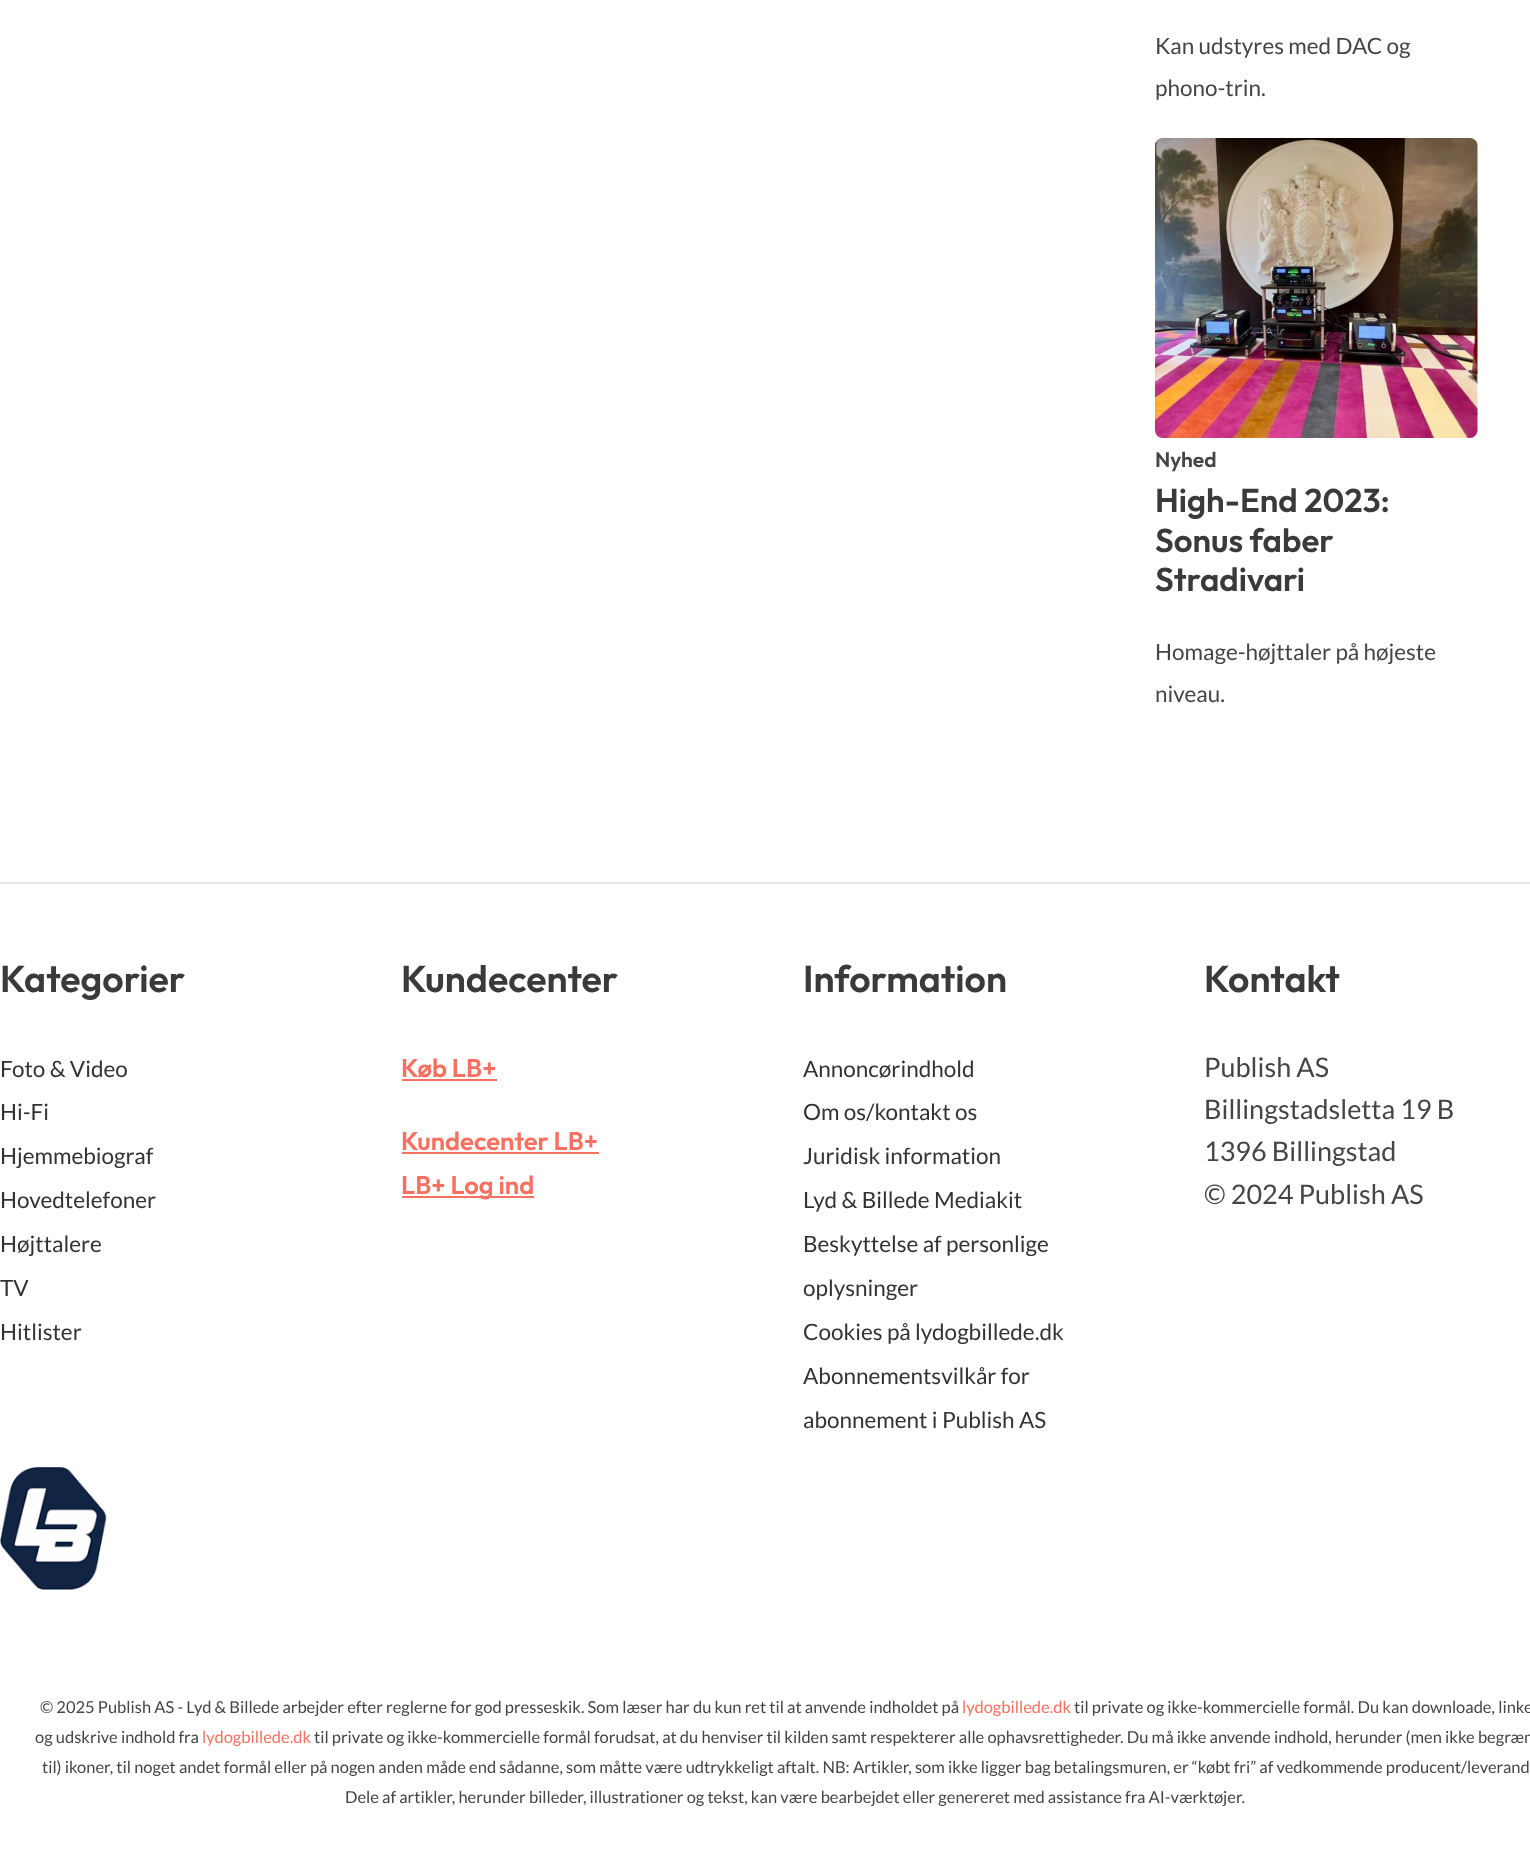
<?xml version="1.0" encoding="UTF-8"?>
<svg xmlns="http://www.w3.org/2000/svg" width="1530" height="1871">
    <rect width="100%" height="100%" fill="#FFFFFF"/>
    <text font-family="Lato" font-size="22.5" fill="#454545">
        <tspan x="1155" y="54">Kan udstyres med DAC og</tspan>
        <tspan x="1155" y="96">phono-trin.</tspan>
    </text>
    <image x="1155" y="138" width="323" height="300" href="img_01.png"/>
    <text x="1155" y="467" font-family="Outfit" font-size="21" font-weight="100" fill="#454545">Nyhed</text>
    <text font-family="Outfit" font-size="33" font-weight="100" fill="#3A3A3A">
        <tspan x="1155" y="512">High-End 2023:</tspan>
        <tspan x="1155" y="552">Sonus faber</tspan>
        <tspan x="1155" y="591">Stradivari</tspan>
    </text>
    <text font-family="Lato" font-size="22.5" fill="#454545">
        <tspan x="1155" y="660">Homage-højttaler på højeste</tspan>
        <tspan x="1155" y="702">niveau.</tspan>
    </text>
    <rect x="0" y="882" width="1530" height="2" fill="#E6E6E6"/>
    <text x="0" y="992" font-family="Outfit" font-size="37.5" font-weight="100" fill="#3A3A3A">Kategorier</text>
    <text font-family="Lato" font-size="22.5" fill="#333333">
        <tspan x="0" y="1077">Foto &amp; Video</tspan>
        <tspan x="0" y="1120">Hi-Fi</tspan>
        <tspan x="0" y="1164">Hjemmebiograf</tspan>
        <tspan x="0" y="1208">Hovedtelefoner</tspan>
        <tspan x="0" y="1252">Højttalere</tspan>
        <tspan x="0" y="1296">TV</tspan>
        <tspan x="0" y="1340">Hitlister</tspan>
    </text>
    <text x="401" y="992" font-family="Outfit" font-size="37.5" font-weight="100" fill="#3A3A3A">Kundecenter</text>
    <text x="401" y="1077" font-family="Outfit" font-size="25.5" font-weight="100" fill="#F87060">Køb LB+</text>
    <rect x="402" y="1079" width="95" height="2" fill="#F87060"/>
    <text x="401" y="1150" font-family="Outfit" font-size="25.5" font-weight="100" fill="#F87060">Kundecenter LB+</text>
    <rect x="402" y="1152" width="197" height="2" fill="#F87060"/>
    <rect x="402" y="1196" width="132" height="2" fill="#F87060"/>
    <text x="401" y="1194" font-family="Outfit" font-size="25.5" font-weight="100" fill="#F87060">LB+ Log ind</text>
    <text x="803" y="992" font-family="Outfit" font-size="37.5" font-weight="100" fill="#3A3A3A">Information</text>
    <text font-family="Lato" font-size="22.5" fill="#333333">
        <tspan x="803" y="1077">Annoncørindhold</tspan>
        <tspan x="803" y="1120">Om os/kontakt os</tspan>
        <tspan x="803" y="1164">Juridisk information</tspan>
        <tspan x="803" y="1208">Lyd &amp; Billede Mediakit</tspan>
        <tspan x="803" y="1252">Beskyttelse af personlige</tspan>
        <tspan x="803" y="1296">oplysninger</tspan>
        <tspan x="803" y="1340">Cookies på lydogbillede.dk</tspan>
        <tspan x="803" y="1384">Abonnementsvilkår for</tspan>
        <tspan x="803" y="1428">abonnement i Publish AS</tspan>
    </text>
    <text x="1204" y="992" font-family="Outfit" font-size="37.5" font-weight="100" fill="#3A3A3A">Kontakt</text>
    <text font-family="Lato" font-size="27" fill="#454545">
        <tspan x="1204" y="1077">Publish AS</tspan>
        <tspan x="1204" y="1119">Billingstadsletta 19 B</tspan>
        <tspan x="1204" y="1161">1396 Billingstad</tspan>
        <tspan x="1204" y="1204">© 2024 Publish AS</tspan>
    </text>
    <image x="0" y="1467" width="107" height="123" href="img_02.png"/>
    <text x="40" y="1713" font-family="Lato" font-size="16.5" fill="#454545">© 2025 Publish AS - Lyd &amp; Billede arbejder efter reglerne for god presseskik. Som læser har du kun ret til at anvende indholdet på</text>
    <text x="962" y="1713" font-family="Lato" font-size="16.5" fill="#F87060">lydogbillede.dk</text>
    <text x="1074" y="1713" font-family="Lato" font-size="16.5" fill="#454545">til private og ikke-kommercielle formål. Du kan downloade, linke</text>
    <text x="35" y="1743" font-family="Lato" font-size="16.5" fill="#454545">og udskrive indhold fra</text>
    <text x="202" y="1743" font-family="Lato" font-size="16.5" fill="#F87060">lydogbillede.dk</text>
    <text x="314" y="1743" font-family="Lato" font-size="16.5" fill="#454545">til private og ikke-kommercielle formål forudsat, at du henviser til kilden samt respekterer alle ophavsrettigheder. Du må ikke anvende indhold, herunder (men ikke begræn</text>
    <text x="42" y="1773" font-family="Lato" font-size="16.5" fill="#454545">til) ikoner, til noget andet formål eller på nogen anden måde end sådanne, som måtte være udtrykkeligt aftalt. NB: Artikler, som ikke ligger bag betalingsmuren, er “købt fri” af vedkommende producent/leverand</text>
    <text x="345" y="1803" font-family="Lato" font-size="16.5" fill="#454545">Dele af artikler, herunder billeder, illustrationer og tekst, kan være bearbejdet eller genereret med assistance fra AI-værktøjer.</text>
</svg>
